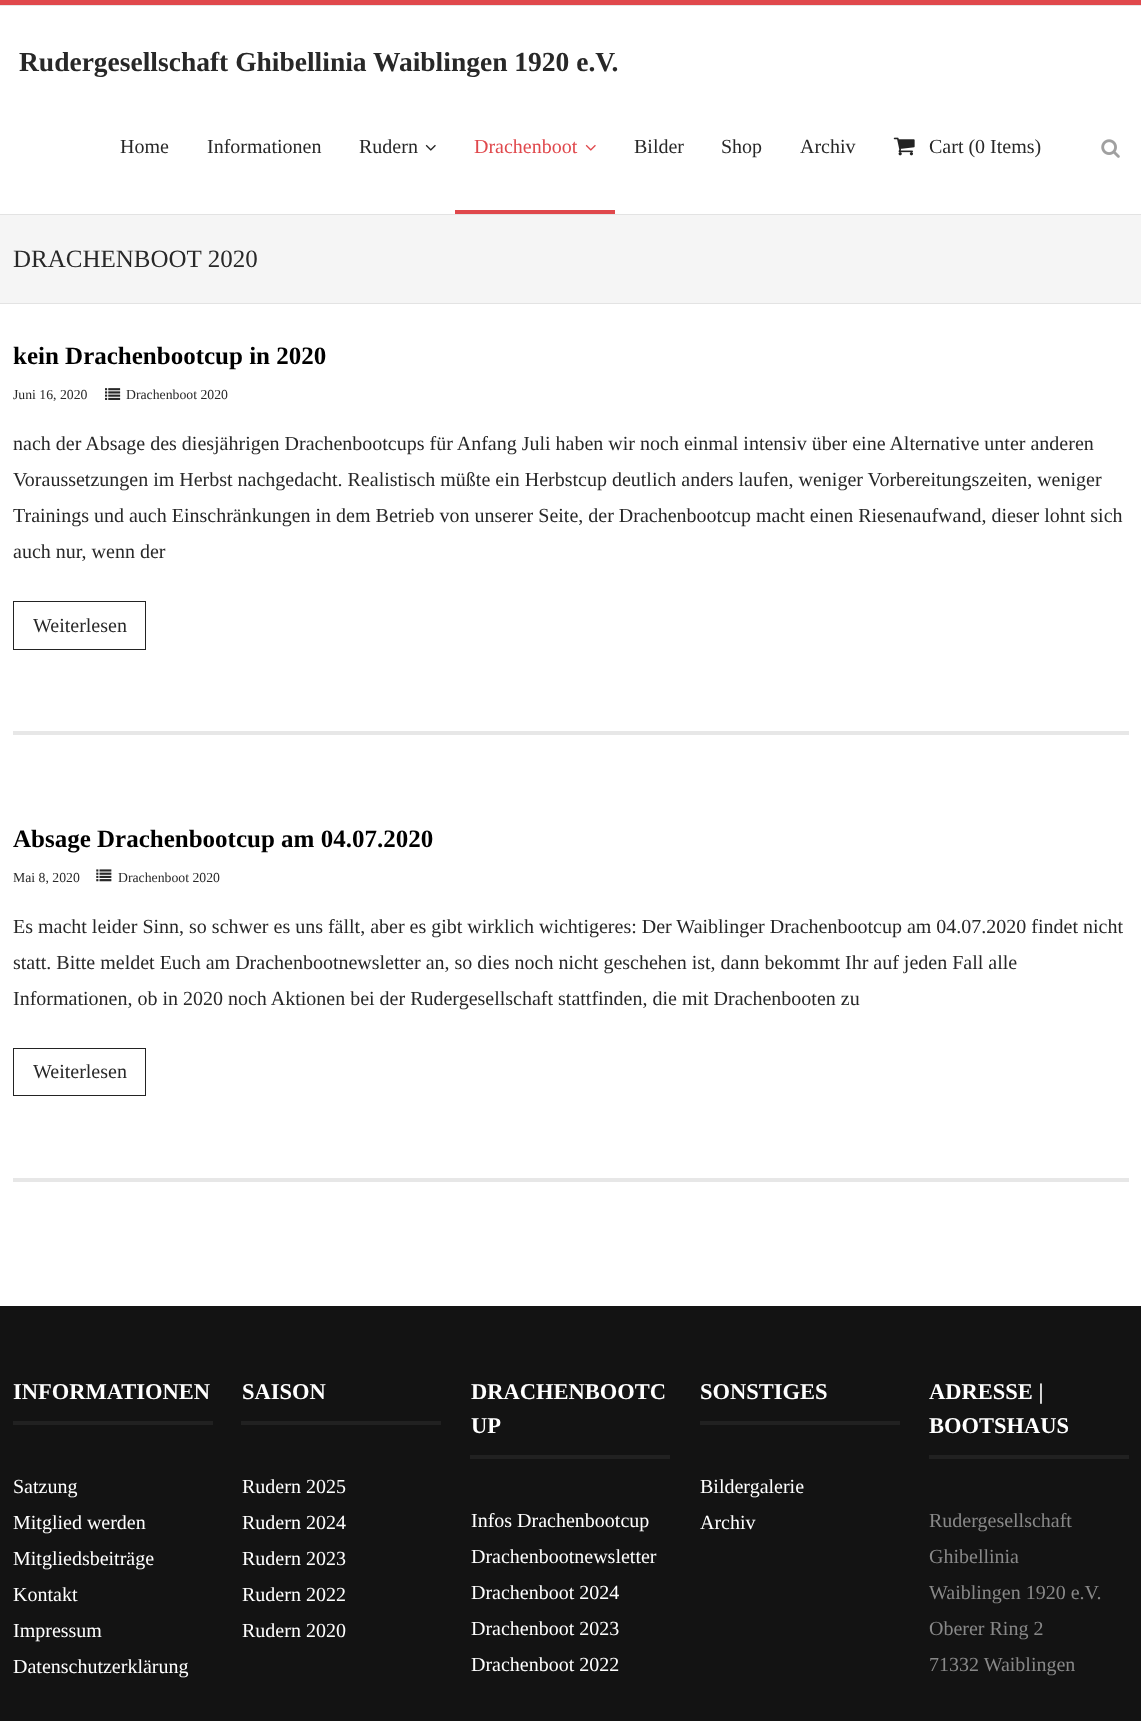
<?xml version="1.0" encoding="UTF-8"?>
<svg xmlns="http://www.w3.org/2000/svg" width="1141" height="1721">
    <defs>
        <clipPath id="clip1"><rect x="13" y="341" width="1116" height="482"/></clipPath>
    </defs>
    <rect width="100%" height="100%" fill="#FFFFFF"/>
    <rect x="0" y="0" width="1141" height="5" fill="#E0484C"/>
    <rect x="0" y="5" width="1141" height="1" fill="#E7E7E7"/>
    <rect x="0" y="214" width="1141" height="1" fill="#E3E3E3"/>
    <text x="19" y="71" font-family="Liberation Serif" font-size="27.5" font-weight="700" fill="#282828">Rudergesellschaft Ghibellinia Waiblingen 1920 e.V.</text>
    <text x="120" y="153" font-family="Liberation Serif" font-size="20" fill="#282828">Home</text>
    <text x="207" y="153" font-family="Liberation Serif" font-size="20" fill="#282828">Informationen</text>
    <text x="359" y="153" font-family="Liberation Serif" font-size="20" fill="#282828">Rudern</text>
    <image x="425" y="144" width="11" height="7" href="img_01.png"/>
    <rect x="455" y="210" width="160" height="4" fill="#E0484C"/>
    <text x="474" y="153" font-family="Liberation Serif" font-size="20" fill="#E0484C">Drachenboot</text>
    <image x="585" y="144" width="11" height="7" href="img_02.png"/>
    <text x="634" y="153" font-family="Liberation Serif" font-size="20" fill="#282828">Bilder</text>
    <text x="721" y="153" font-family="Liberation Serif" font-size="20" fill="#282828">Shop</text>
    <text x="800" y="153" font-family="Liberation Serif" font-size="20" fill="#282828">Archiv</text>
    <image x="893" y="137" width="22" height="19" href="img_03.png"/>
    <text x="929" y="153" font-family="Liberation Serif" font-size="20" fill="#282828">Cart (0 Items)</text>
    <image x="1101" y="139" width="19" height="19" href="img_04.png"/>
    <rect x="0" y="215" width="1141" height="88" fill="#F5F5F5"/>
    <rect x="0" y="303" width="1141" height="1" fill="#E3E3E3"/>
    <text x="13" y="267" font-family="Liberation Serif" font-size="25" fill="#282828">DRACHENBOOT 2020</text>
    <rect x="13" y="731" width="1116" height="4" fill="#E7E7E7"/>
    <text x="13" y="364" font-family="Liberation Serif" font-size="25" font-weight="700" fill="#000000">kein Drachenbootcup in 2020</text>
    <text x="13" y="399" font-family="Liberation Serif" font-size="13.75" fill="#282828">Juni 16, 2020</text>
    <image x="105" y="388" width="16" height="12" href="img_05.png"/>
    <text x="126" y="399" font-family="Liberation Serif" font-size="13.75" fill="#282828">Drachenboot 2020</text>
    <text font-family="Liberation Serif" font-size="20" fill="#282828">
        <tspan x="13" y="450">nach der Absage des diesjährigen Drachenbootcups für Anfang Juli haben wir noch einmal intensiv über eine Alternative unter anderen</tspan>
        <tspan x="13" y="486">Voraussetzungen im Herbst nachgedacht. Realistisch müßte ein Herbstcup deutlich anders laufen, weniger Vorbereitungszeiten, weniger</tspan>
    </text>
    <g clip-path="url(#clip1)">
        <text x="13" y="522" font-family="Liberation Serif" font-size="20" fill="#282828">Trainings und auch Einschränkungen in dem Betrieb von unserer Seite, der Drachenbootcup macht einen Riesenaufwand, dieser lohnt sich</text>
    </g>
    <text x="13" y="558" font-family="Liberation Serif" font-size="20" fill="#282828">auch nur, wenn der</text>
    <rect x="13.5" y="601.5" width="132" height="48" fill="none" stroke="#232323"/>
    <text x="33" y="632" font-family="Liberation Serif" font-size="20" fill="#282828">Weiterlesen</text>
    <rect x="13" y="1178" width="1116" height="4" fill="#E7E7E7"/>
    <text x="13" y="847" font-family="Liberation Serif" font-size="25" font-weight="700" fill="#000000">Absage Drachenbootcup am 04.07.2020</text>
    <text x="13" y="882" font-family="Liberation Serif" font-size="13.75" fill="#282828">Mai 8, 2020</text>
    <image x="96" y="869" width="16" height="13" href="img_06.png"/>
    <text x="118" y="882" font-family="Liberation Serif" font-size="13.75" fill="#282828">Drachenboot 2020</text>
    <text font-family="Liberation Serif" font-size="20" fill="#282828">
        <tspan x="13" y="933">Es macht leider Sinn, so schwer es uns fällt, aber es gibt wirklich wichtigeres: Der Waiblinger Drachenbootcup am 04.07.2020 findet nicht</tspan>
        <tspan x="13" y="969">statt. Bitte meldet Euch am Drachenbootnewsletter an, so dies noch nicht geschehen ist, dann bekommt Ihr auf jeden Fall alle</tspan>
        <tspan x="13" y="1005">Informationen, ob in 2020 noch Aktionen bei der Rudergesellschaft stattfinden, die mit Drachenbooten zu</tspan>
    </text>
    <rect x="13.5" y="1048.5" width="132" height="47" fill="none" stroke="#232323"/>
    <text x="33" y="1078" font-family="Liberation Serif" font-size="20" fill="#282828">Weiterlesen</text>
    <rect x="0" y="1306" width="1141" height="415" fill="#131313"/>
    <rect x="13" y="1421" width="200" height="4" fill="#212121"/>
    <text x="13" y="1399" font-family="Liberation Serif" font-size="22.5" font-weight="700" fill="#FFFFFF">INFORMATIONEN</text>
    <text font-family="Liberation Serif" font-size="20" fill="#FFFFFF">
        <tspan x="13" y="1493">Satzung</tspan>
        <tspan x="13" y="1529">Mitglied werden</tspan>
        <tspan x="13" y="1565">Mitgliedsbeiträge</tspan>
        <tspan x="13" y="1601">Kontakt</tspan>
        <tspan x="13" y="1637">Impressum</tspan>
        <tspan x="13" y="1673">Datenschutzerklärung</tspan>
    </text>
    <rect x="241" y="1421" width="200" height="4" fill="#212121"/>
    <text x="242" y="1399" font-family="Liberation Serif" font-size="22.5" font-weight="700" fill="#FFFFFF">SAISON</text>
    <text font-family="Liberation Serif" font-size="20" fill="#FFFFFF">
        <tspan x="242" y="1493">Rudern 2025</tspan>
        <tspan x="242" y="1529">Rudern 2024</tspan>
        <tspan x="242" y="1565">Rudern 2023</tspan>
        <tspan x="242" y="1601">Rudern 2022</tspan>
        <tspan x="242" y="1637">Rudern 2020</tspan>
    </text>
    <rect x="470" y="1455" width="200" height="4" fill="#212121"/>
    <text font-family="Liberation Serif" font-size="22.5" font-weight="700" fill="#FFFFFF">
        <tspan x="471" y="1399">DRACHENBOOTC</tspan>
        <tspan x="471" y="1433">UP</tspan>
    </text>
    <text font-family="Liberation Serif" font-size="20" fill="#FFFFFF">
        <tspan x="471" y="1527">Infos Drachenbootcup</tspan>
        <tspan x="471" y="1563">Drachenbootnewsletter</tspan>
        <tspan x="471" y="1599">Drachenboot 2024</tspan>
        <tspan x="471" y="1635">Drachenboot 2023</tspan>
        <tspan x="471" y="1671">Drachenboot 2022</tspan>
    </text>
    <rect x="700" y="1421" width="200" height="4" fill="#212121"/>
    <text x="700" y="1399" font-family="Liberation Serif" font-size="22.5" font-weight="700" fill="#FFFFFF">SONSTIGES</text>
    <text font-family="Liberation Serif" font-size="20" fill="#FFFFFF">
        <tspan x="700" y="1493">Bildergalerie</tspan>
        <tspan x="700" y="1529">Archiv</tspan>
    </text>
    <rect x="929" y="1455" width="200" height="4" fill="#212121"/>
    <text font-family="Liberation Serif" font-size="22.5" font-weight="700" fill="#FFFFFF">
        <tspan x="929" y="1399">ADRESSE |</tspan>
        <tspan x="929" y="1433">BOOTSHAUS</tspan>
    </text>
    <text font-family="Liberation Serif" font-size="20" fill="#888888">
        <tspan x="929" y="1527">Rudergesellschaft</tspan>
        <tspan x="929" y="1563">Ghibellinia</tspan>
        <tspan x="929" y="1599">Waiblingen 1920 e.V.</tspan>
        <tspan x="929" y="1635">Oberer Ring 2</tspan>
        <tspan x="929" y="1671">71332 Waiblingen</tspan>
    </text>
</svg>
